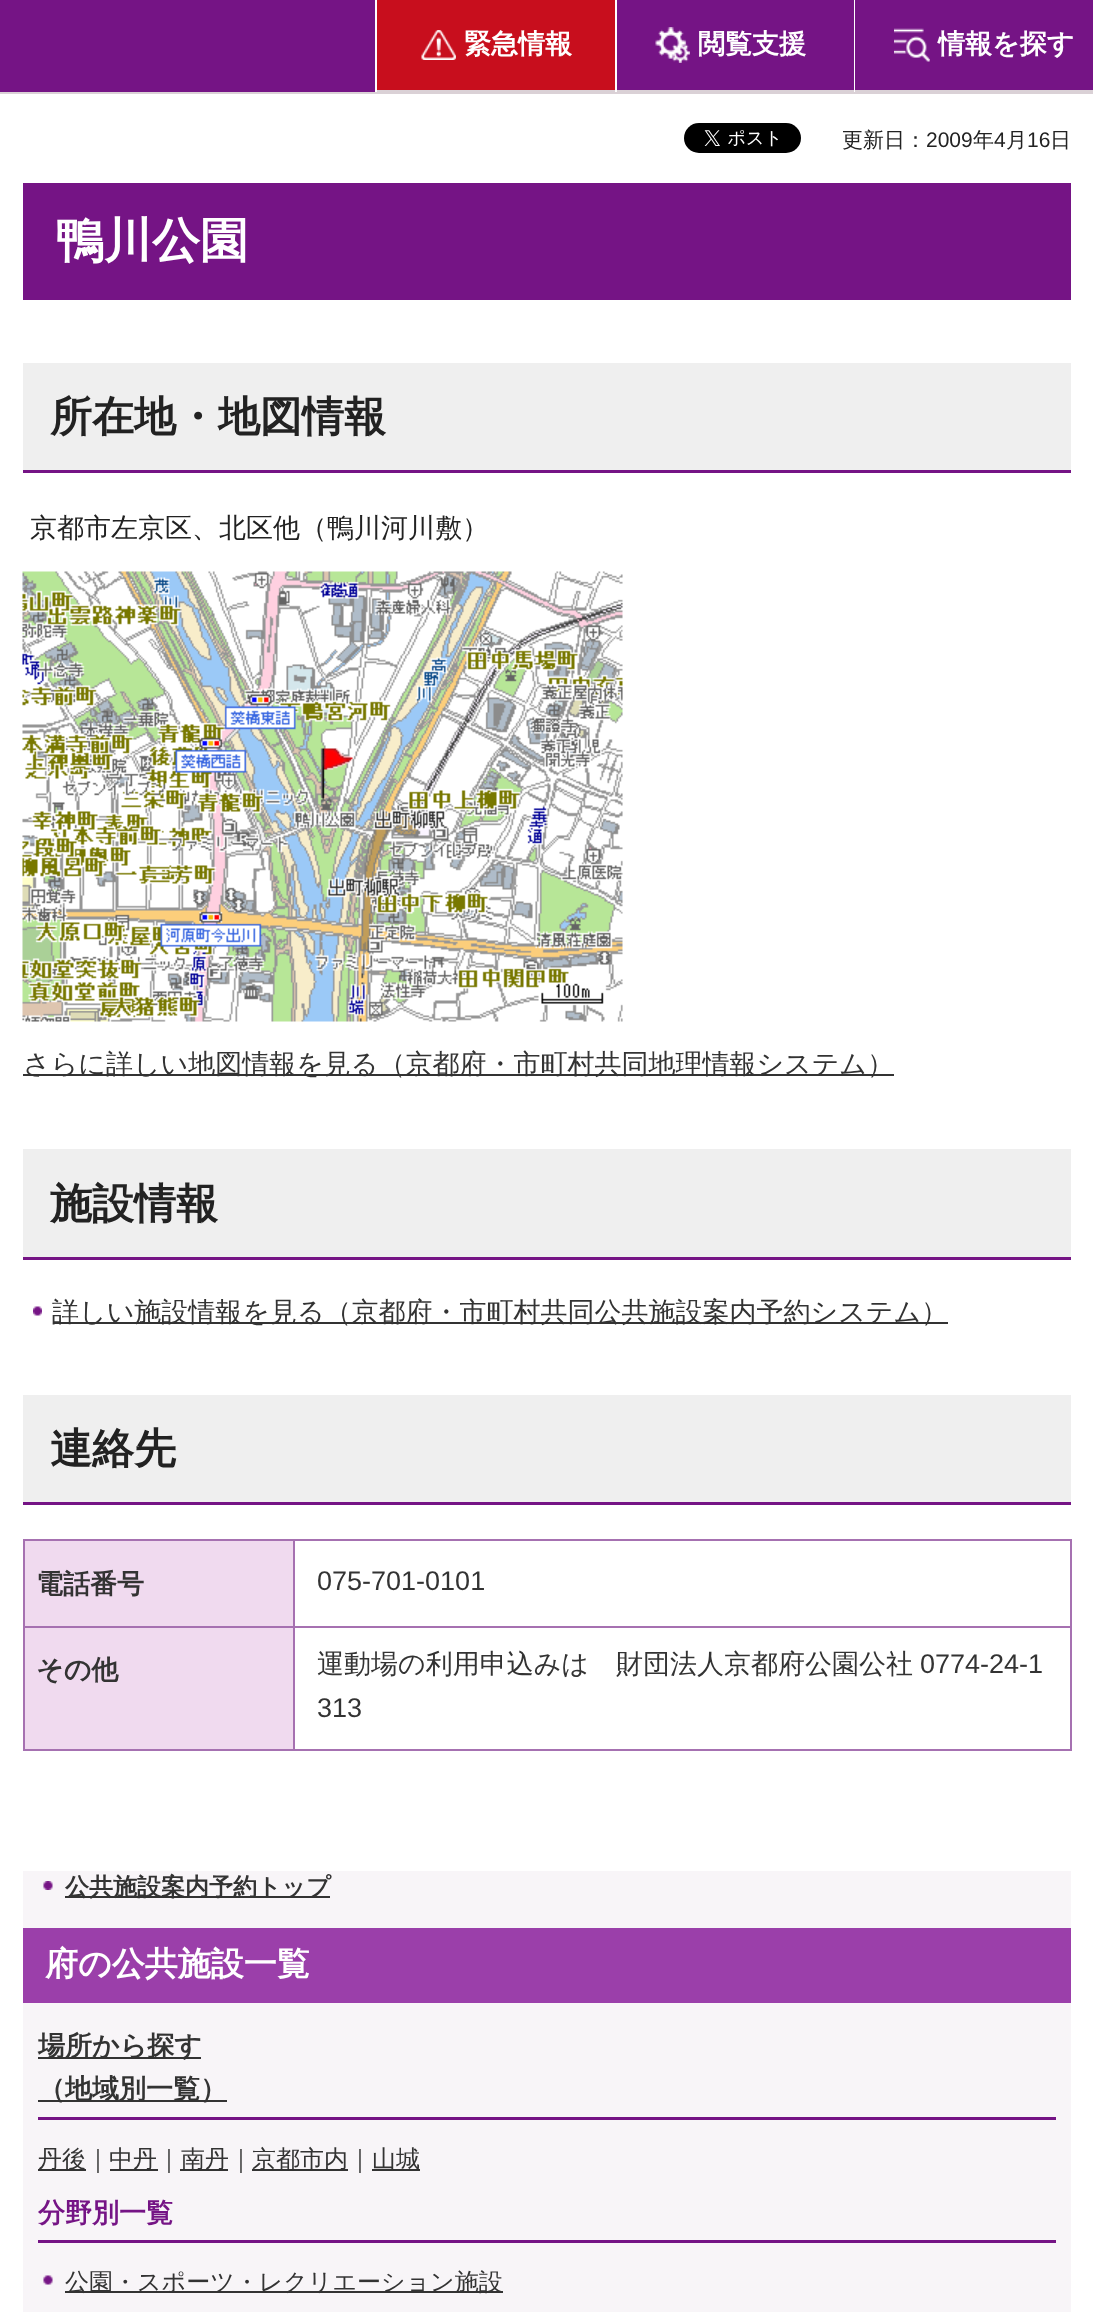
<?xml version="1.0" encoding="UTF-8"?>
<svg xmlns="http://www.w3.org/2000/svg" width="1093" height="2312">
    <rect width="100%" height="100%" fill="#FFFFFF"/>
    <rect x="0" y="0" width="854" height="92" fill="#751485"/>
    <rect x="0" y="92" width="1093" height="2" fill="#DAD1D6"/>
    <rect x="375" y="0" width="2" height="92" fill="#FFFFFF"/>
    <rect x="377" y="0" width="238" height="90" fill="#C80E1D"/>
    <image x="421" y="30" width="35" height="30" href="img_01.png"/>
    <rect x="377" y="90" width="238" height="2" fill="#DAD1D6"/>
    <text x="464" y="53" font-family="WenQuanYi Zen Hei" font-size="27" font-weight="700" fill="#FFFFFF">緊急情報</text>
    <rect x="615" y="0" width="2" height="92" fill="#FFFFFF"/>
    <image x="655" y="27" width="35" height="36" href="img_02.png"/>
    <rect x="617" y="90" width="237" height="2" fill="#DAD1D6"/>
    <text x="698" y="53" font-family="WenQuanYi Zen Hei" font-size="27" font-weight="700" fill="#FFFFFF">閲覧支援</text>
    <rect x="855" y="0" width="238" height="90" fill="#751485"/>
    <image x="894" y="28" width="36" height="34" href="img_03.png"/>
    <rect x="855" y="90" width="238" height="2" fill="#DAD1D6"/>
    <text x="938" y="53" font-family="WenQuanYi Zen Hei" font-size="27" font-weight="700" fill="#FFFFFF">情報を探す</text>
    <image x="684" y="123" width="117" height="30" href="img_04.png"/>
    <text x="842" y="147" font-family="WenQuanYi Zen Hei" font-size="21" font-weight="500" fill="#222222">更新日：</text>
    <text x="926" y="147" font-family="Liberation Sans" font-size="21" fill="#222222">2009</text>
    <text x="973" y="147" font-family="WenQuanYi Zen Hei" font-size="21" font-weight="500" fill="#222222">年</text>
    <text x="994" y="147" font-family="Liberation Sans" font-size="21" fill="#222222">4</text>
    <text x="1006" y="147" font-family="WenQuanYi Zen Hei" font-size="21" font-weight="500" fill="#222222">月</text>
    <text x="1027" y="147" font-family="Liberation Sans" font-size="21" fill="#222222">16</text>
    <text x="1050" y="147" font-family="WenQuanYi Zen Hei" font-size="21" font-weight="500" fill="#222222">日</text>
    <rect x="23" y="183" width="1048" height="117" fill="#751485"/>
    <text x="56" y="257" font-family="WenQuanYi Zen Hei" font-size="48" font-weight="700" fill="#FFFFFF">鴨川公園</text>
    <rect x="23" y="363" width="1048" height="107" fill="#EFEFEF"/>
    <rect x="23" y="470" width="1048" height="3" fill="#751485"/>
    <text x="50" y="431" font-family="WenQuanYi Zen Hei" font-size="42" font-weight="700" fill="#222222">所在地・地図情報</text>
    <text x="30" y="537" font-family="WenQuanYi Zen Hei" font-size="27" font-weight="500" fill="#222222">京都市左京区、北区他（鴨川河川敷）</text>
    <image x="22" y="571" width="601" height="451" href="img_05.png"/>
    <rect x="23" y="1074" width="871" height="2" fill="#333333"/>
    <text x="23" y="1073" font-family="WenQuanYi Zen Hei" font-size="27" font-weight="500" fill="#333333">さらに詳しい地図情報を見る（京都府・市町村共同地理情報システム）</text>
    <rect x="23" y="1149" width="1048" height="108" fill="#EFEFEF"/>
    <rect x="23" y="1257" width="1048" height="3" fill="#751485"/>
    <text x="50" y="1218" font-family="WenQuanYi Zen Hei" font-size="42" font-weight="700" fill="#222222">施設情報</text>
    <image x="33" y="1306" width="9" height="10" href="img_06.png"/>
    <rect x="53" y="1322" width="895" height="2" fill="#333333"/>
    <text x="52" y="1321" font-family="WenQuanYi Zen Hei" font-size="27" font-weight="500" fill="#333333">詳しい施設情報を見る（京都府・市町村共同公共施設案内予約システム）</text>
    <rect x="23" y="1395" width="1048" height="107" fill="#EFEFEF"/>
    <rect x="23" y="1502" width="1048" height="3" fill="#751485"/>
    <text x="50" y="1463" font-family="WenQuanYi Zen Hei" font-size="42" font-weight="700" fill="#222222">連絡先</text>
    <rect x="23" y="1539" width="1048" height="2" fill="#A671B1"/>
    <rect x="1070" y="1539" width="2" height="212" fill="#A671B1"/>
    <rect x="23" y="1749" width="1048" height="2" fill="#A671B1"/>
    <rect x="23" y="1539" width="2" height="212" fill="#A671B1"/>
    <rect x="25" y="1541" width="268" height="85" fill="#F0DAEF"/>
    <text x="36" y="1593" font-family="WenQuanYi Zen Hei" font-size="27" font-weight="700" fill="#333333">電話番号</text>
    <rect x="293" y="1626" width="778" height="2" fill="#A671B1"/>
    <rect x="293" y="1626" width="2" height="125" fill="#A671B1"/>
    <rect x="23" y="1626" width="271" height="2" fill="#A671B1"/>
    <rect x="293" y="1539" width="2" height="89" fill="#A671B1"/>
    <text x="317" y="1590" font-family="Liberation Sans" font-size="27" fill="#333333">075-701-0101</text>
    <rect x="25" y="1628" width="268" height="121" fill="#F0DAEF"/>
    <text x="36" y="1679" font-family="WenQuanYi Zen Hei" font-size="27" font-weight="700" fill="#333333">その他</text>
    <text x="317" y="1673" font-family="WenQuanYi Zen Hei" font-size="27" font-weight="500" fill="#333333">運動場の利用申込みは　財団法人京都府公園公社</text>
    <text x="920" y="1673" font-family="Liberation Sans" font-size="27" fill="#333333">0774-24-1</text>
    <text x="317" y="1717" font-family="Liberation Sans" font-size="27" fill="#333333">313</text>
    <rect x="23" y="1871" width="1048" height="441" fill="#F8F5F8"/>
    <image x="43" y="1881" width="10" height="9" href="img_07.png"/>
    <rect x="65" y="1896" width="265" height="2" fill="#333333"/>
    <text x="65" y="1895" font-family="WenQuanYi Zen Hei" font-size="24" font-weight="700" fill="#333333">公共施設案内予約トップ</text>
    <rect x="23" y="1928" width="1048" height="75" fill="#9B3FAA"/>
    <text x="45" y="1975" font-family="WenQuanYi Zen Hei" font-size="33" font-weight="700" fill="#FFFFFF">府の公共施設一覧</text>
    <rect x="38" y="2117" width="1018" height="3" fill="#751485"/>
    <rect x="38" y="2057" width="163" height="2" fill="#333333"/>
    <text x="38" y="2055" font-family="WenQuanYi Zen Hei" font-size="27" font-weight="700" fill="#333333">場所から探す</text>
    <rect x="38" y="2100" width="189" height="2" fill="#333333"/>
    <text x="38" y="2098" font-family="WenQuanYi Zen Hei" font-size="27" font-weight="700" fill="#333333">（地域別一覧）</text>
    <rect x="38" y="2169" width="48" height="2" fill="#333333"/>
    <text x="38" y="2167" font-family="WenQuanYi Zen Hei" font-size="24" font-weight="500" fill="#333333">丹後｜</text>
    <rect x="110" y="2169" width="48" height="2" fill="#333333"/>
    <text x="109" y="2167" font-family="WenQuanYi Zen Hei" font-size="24" font-weight="500" fill="#333333">中丹｜</text>
    <rect x="180" y="2169" width="48" height="2" fill="#333333"/>
    <text x="181" y="2167" font-family="WenQuanYi Zen Hei" font-size="24" font-weight="500" fill="#333333">南丹｜</text>
    <rect x="252" y="2169" width="96" height="2" fill="#333333"/>
    <text x="252" y="2167" font-family="WenQuanYi Zen Hei" font-size="24" font-weight="500" fill="#333333">京都市内｜</text>
    <rect x="372" y="2169" width="48" height="2" fill="#333333"/>
    <text x="372" y="2167" font-family="WenQuanYi Zen Hei" font-size="24" font-weight="500" fill="#333333">山城</text>
    <rect x="38" y="2240" width="1018" height="3" fill="#751485"/>
    <text x="38" y="2222" font-family="WenQuanYi Zen Hei" font-size="27" font-weight="700" fill="#751485">分野別一覧</text>
    <image x="43" y="2275" width="10" height="10" href="img_08.png"/>
    <rect x="65" y="2291" width="438" height="2" fill="#333333"/>
    <text x="65" y="2290" font-family="WenQuanYi Zen Hei" font-size="24" font-weight="500" fill="#333333">公園・スポーツ・レクリエーション施設</text>
</svg>
